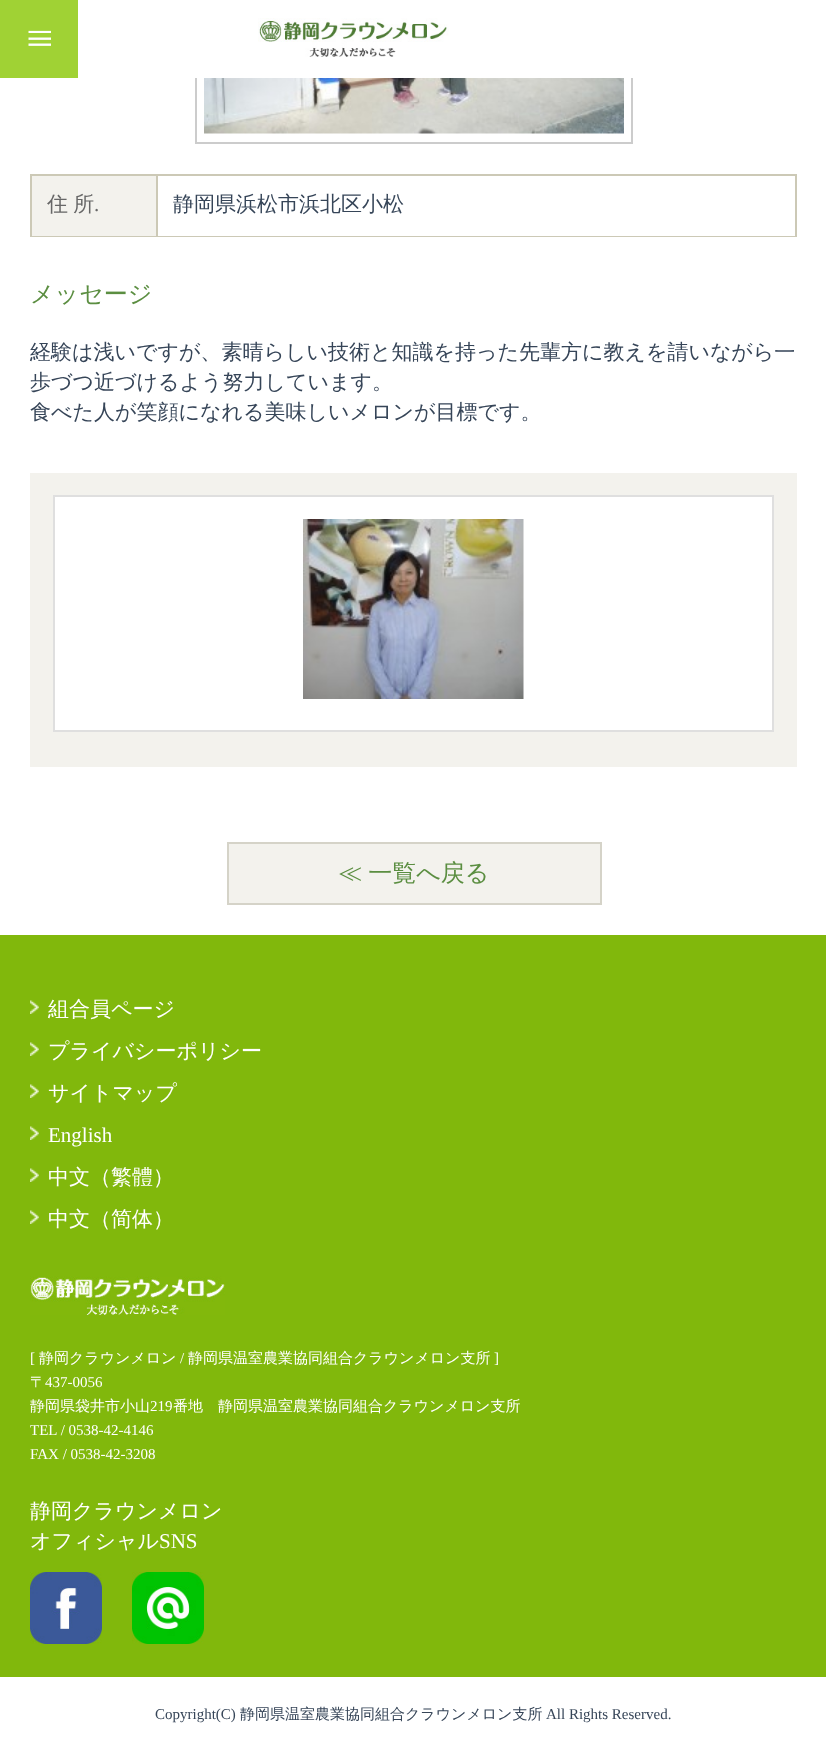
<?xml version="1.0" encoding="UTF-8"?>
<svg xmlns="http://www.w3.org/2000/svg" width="826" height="1751">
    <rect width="100%" height="100%" fill="#FFFFFF"/>
    <rect x="196" y="-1" width="436" height="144" fill="none" stroke="#CCCCCC" stroke-width="2"/>
    <rect x="195" y="0" width="438" height="78" fill="#FFFFFF"/>
    <image x="0" y="0" width="78" height="78" href="img_01.png"/>
    <image x="258" y="18" width="191" height="39" href="img_02.png"/>
    <image x="204" y="78" width="420" height="56" href="img_03.png"/>
    <rect x="30" y="174" width="767" height="2" fill="#CCC9B6"/>
    <rect x="30" y="174" width="2" height="63" fill="#CCC9B6"/>
    <rect x="32" y="176" width="124" height="60" fill="#F3F2ED"/>
    <rect x="156" y="176" width="2" height="61" fill="#CCC9B6"/>
    <rect x="32" y="236" width="126" height="1" fill="#CCC9B6"/>
    <text x="47" y="211" word-spacing="-1" font-family="WenQuanYi Zen Hei" font-size="21" font-weight="500" fill="#676767">住 所</text>
    <text x="94" y="211" font-family="Liberation Serif" font-size="21" fill="#676767">.</text>
    <rect x="795" y="176" width="2" height="61" fill="#CCC9B6"/>
    <rect x="158" y="236" width="639" height="1" fill="#CCC9B6"/>
    <text x="173" y="211" font-family="WenQuanYi Zen Hei" font-size="21" font-weight="500" fill="#364558">静岡県浜松市浜北区小松</text>
    <text x="30" y="302" font-family="WenQuanYi Zen Hei" font-size="24" font-weight="500" fill="#5B8E41">メッセージ</text>
    <text font-family="WenQuanYi Zen Hei" font-size="21" font-weight="500" fill="#364558">
        <tspan x="30" y="359">経験は浅いですが、素晴らしい技術と知識を持った先輩方に教えを請いながら一</tspan>
        <tspan x="30" y="389">歩づつ近づけるよう努力しています。</tspan>
        <tspan x="30" y="419">食べた人が笑顔になれる美味しいメロンが目標です。</tspan>
    </text>
    <rect x="30" y="473" width="767" height="294" fill="#F3F2ED"/>
    <rect x="54" y="496" width="719" height="235" fill="#FFFFFF" stroke="#DFDFDF" stroke-width="2"/>
    <image x="303" y="519" width="221" height="180" href="img_04.png"/>
    <rect x="228" y="843" width="373" height="61" fill="#F3F2ED" stroke="#D5D3C8" stroke-width="2"/>
    <text x="338" y="881" word-spacing="-1" font-family="WenQuanYi Zen Hei" font-size="24" font-weight="500" fill="#5B8E41">≪ 一覧へ戻る</text>
    <rect x="0" y="935" width="826" height="742" fill="#81B80C"/>
    <image x="30" y="1000" width="9" height="14" href="img_05.png"/>
    <text x="48" y="1016" font-family="WenQuanYi Zen Hei" font-size="21" font-weight="500" fill="#FFFFFF">組合員ページ</text>
    <image x="30" y="1042" width="9" height="14" href="img_05.png"/>
    <text x="48" y="1058" font-family="WenQuanYi Zen Hei" font-size="21" font-weight="500" fill="#FFFFFF">プライバシーポリシー</text>
    <image x="30" y="1084" width="9" height="14" href="img_05.png"/>
    <text x="48" y="1100" font-family="WenQuanYi Zen Hei" font-size="21" font-weight="500" fill="#FFFFFF">サイトマップ</text>
    <image x="30" y="1126" width="9" height="14" href="img_05.png"/>
    <text x="48" y="1142" font-family="Liberation Serif" font-size="21" fill="#FFFFFF">English</text>
    <image x="30" y="1168" width="9" height="14" href="img_05.png"/>
    <text x="48" y="1184" font-family="WenQuanYi Zen Hei" font-size="21" font-weight="500" fill="#FFFFFF">中文（繁體）</text>
    <image x="30" y="1210" width="9" height="14" href="img_05.png"/>
    <text x="48" y="1226" font-family="WenQuanYi Zen Hei" font-size="21" font-weight="500" fill="#FFFFFF">中文（简体）</text>
    <image x="30" y="1276" width="195" height="39" href="img_06.png"/>
    <text x="30" y="1363" font-family="Liberation Serif" font-size="15" fill="#FFFFFF">[</text>
    <text x="39" y="1363" font-family="WenQuanYi Zen Hei" font-size="15" font-weight="500" fill="#FFFFFF">静岡クラウンメロン</text>
    <text x="180" y="1363" font-family="Liberation Serif" font-size="15" fill="#FFFFFF">/</text>
    <text x="188" y="1363" font-family="WenQuanYi Zen Hei" font-size="15" font-weight="500" fill="#FFFFFF">静岡県温室農業協同組合クラウンメロン支所</text>
    <text x="494" y="1363" font-family="Liberation Serif" font-size="15" fill="#FFFFFF">]</text>
    <text x="30" y="1387" font-family="WenQuanYi Zen Hei" font-size="15" font-weight="500" fill="#FFFFFF">〒</text>
    <text x="45" y="1387" font-family="Liberation Serif" font-size="15" fill="#FFFFFF">437-0056</text>
    <text x="30" y="1411" font-family="WenQuanYi Zen Hei" font-size="15" font-weight="500" fill="#FFFFFF">静岡県袋井市小山</text>
    <text x="150" y="1411" font-family="Liberation Serif" font-size="15" fill="#FFFFFF">219</text>
    <text x="173" y="1411" font-family="WenQuanYi Zen Hei" font-size="15" font-weight="500" fill="#FFFFFF">番地　静岡県温室農業協同組合クラウンメロン支所</text>
    <text font-family="Liberation Serif" font-size="15" fill="#FFFFFF">
        <tspan x="30" y="1435">TEL / 0538-42-4146</tspan>
        <tspan x="30" y="1459">FAX / 0538-42-3208</tspan>
    </text>
    <text font-family="WenQuanYi Zen Hei" font-size="21" font-weight="500" fill="#FFFFFF">
        <tspan x="30" y="1518">静岡クラウンメロン</tspan>
        <tspan x="30" y="1548">オフィシャル</tspan>
    </text>
    <text x="159" y="1548" font-family="Liberation Serif" font-size="21" fill="#FFFFFF">SNS</text>
    <image x="30" y="1572" width="72" height="72" href="img_07.png"/>
    <image x="132" y="1572" width="72" height="72" href="img_08.png"/>
    <text x="155" y="1719" font-family="Liberation Serif" font-size="15" fill="#364558">Copyright(C)</text>
    <text x="240" y="1719" font-family="WenQuanYi Zen Hei" font-size="15" font-weight="500" fill="#364558">静岡県温室農業協同組合クラウンメロン支所</text>
    <text x="546" y="1719" font-family="Liberation Serif" font-size="15" fill="#364558">All Rights Reserved.</text>
</svg>
